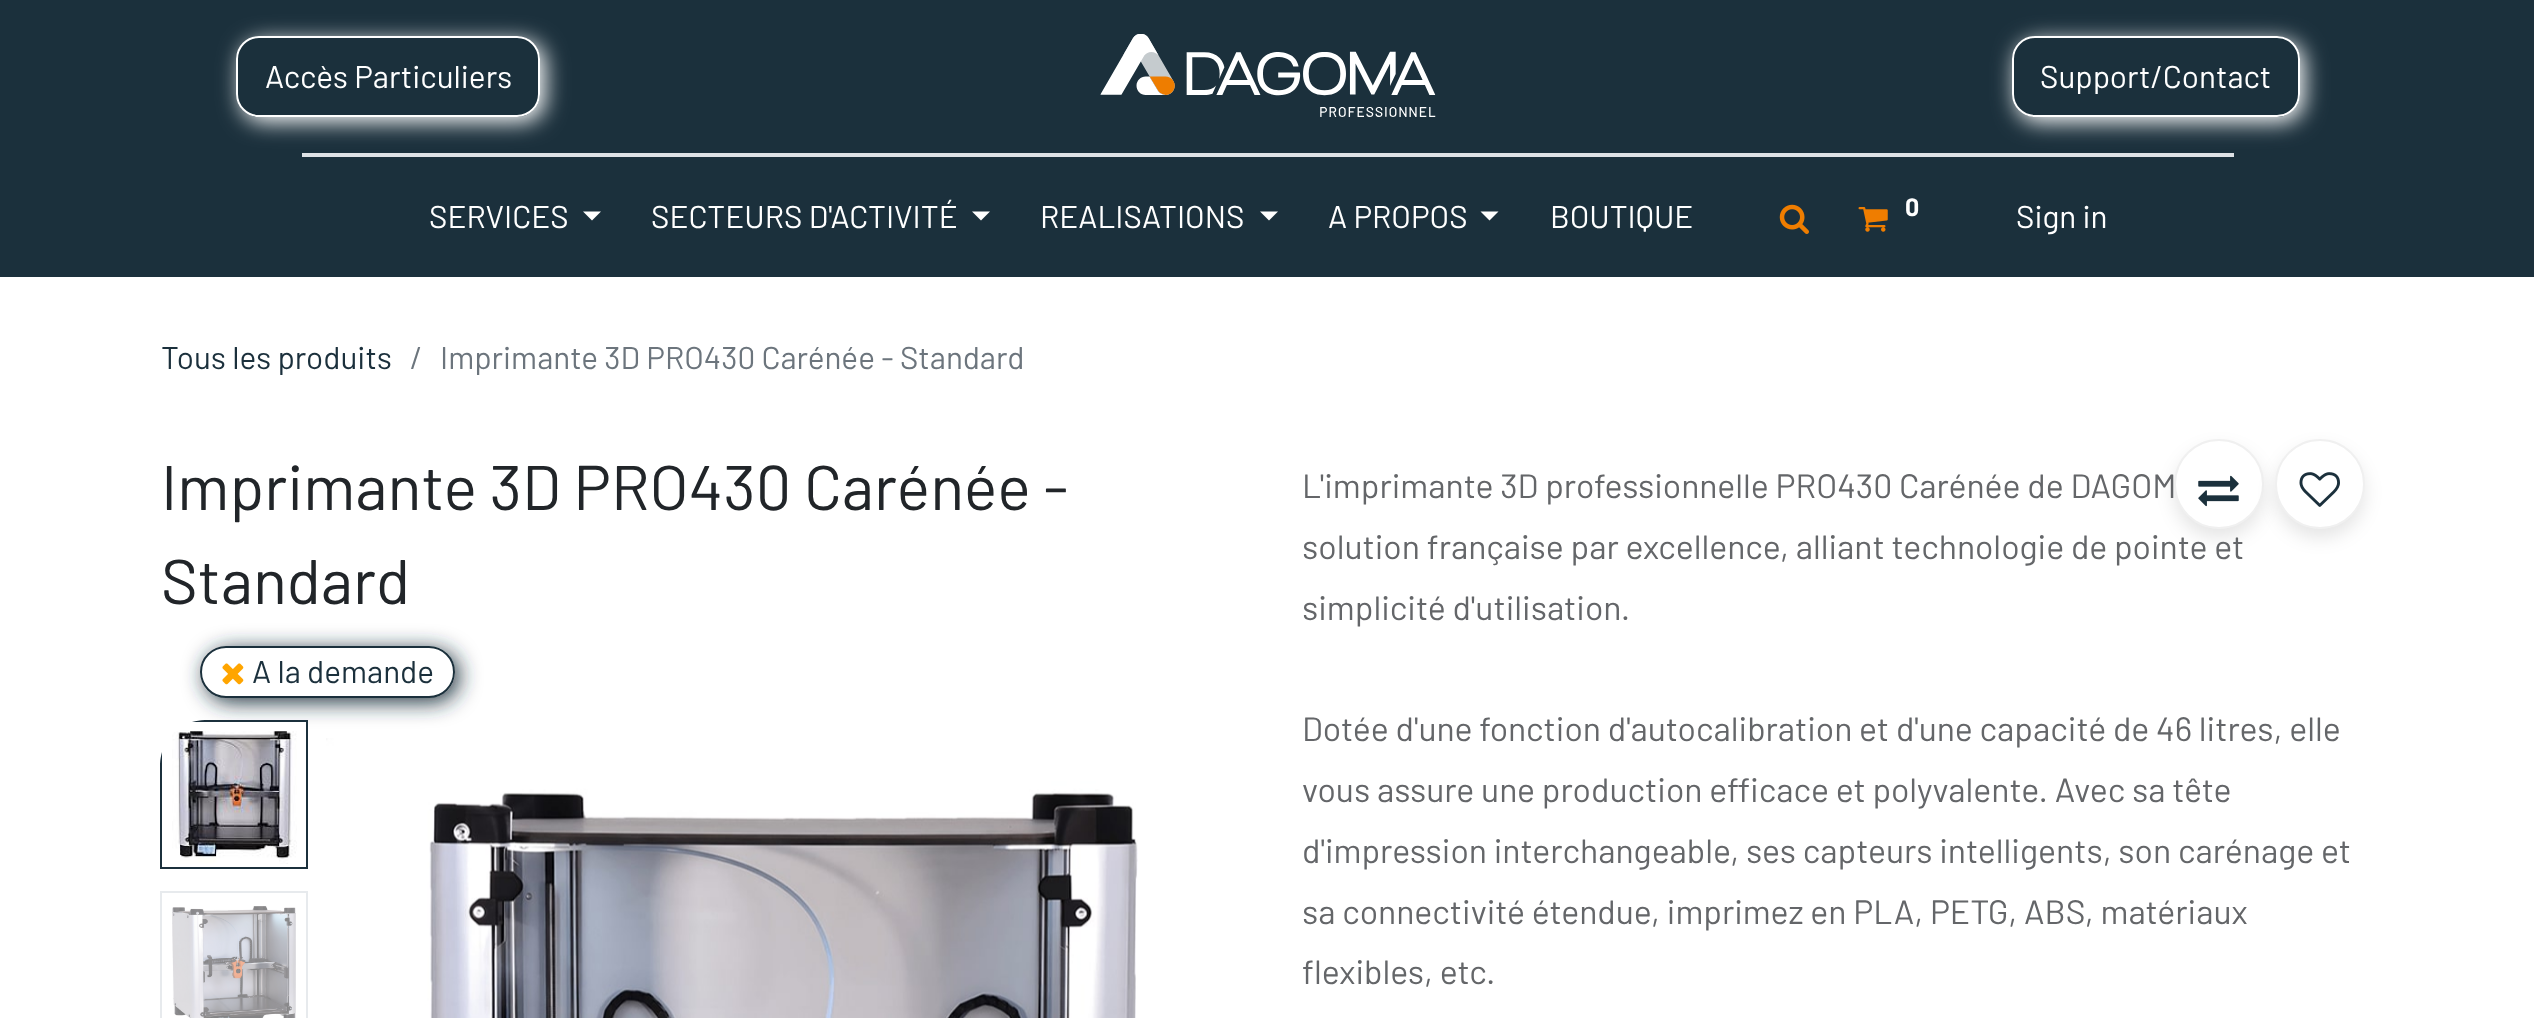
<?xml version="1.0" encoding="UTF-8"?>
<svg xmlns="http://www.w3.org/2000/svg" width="2534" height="1018">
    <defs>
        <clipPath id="clip1"><path d="M 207 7 H 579 V 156 H 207 Z M 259 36 H 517 C 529.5 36 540 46.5 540 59 V 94 C 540 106.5 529.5 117 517 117 H 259 C 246.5 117 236 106.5 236 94 V 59 C 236 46.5 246.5 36 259 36 Z" clip-rule="evenodd"/></clipPath>
        <filter id="blur1" x="-50%" y="-200%" width="200%" height="500%"><feGaussianBlur stdDeviation="11"/></filter>
        <clipPath id="clip2"><path d="M 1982 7 H 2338 V 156 H 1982 Z M 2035 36 H 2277 C 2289.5 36 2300 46.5 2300 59 V 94 C 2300 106.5 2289.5 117 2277 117 H 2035 C 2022.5 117 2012 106.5 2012 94 V 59 C 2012 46.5 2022.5 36 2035 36 Z" clip-rule="evenodd"/></clipPath>
        <clipPath id="clip3"><path d="M 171 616 H 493 V 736 H 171 Z M 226 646 H 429 C 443.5 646 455 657.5 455 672 C 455 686.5 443.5 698 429 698 H 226 C 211.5 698 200 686.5 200 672 C 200 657.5 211.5 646 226 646 Z" clip-rule="evenodd"/></clipPath>
        <clipPath id="clip4"><path d="M 205 720 H 1188 C 1213 720 1233 740 1233 765 V 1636 H 160 V 765 C 160 740 180 720 205 720 Z"/></clipPath>
        <filter id="blur2" x="-50%" y="-200%" width="200%" height="500%"><feGaussianBlur stdDeviation="9"/></filter>
    </defs>
    <rect width="100%" height="100%" fill="#FFFFFF"/>
    <rect x="0" y="0" width="2534" height="277" fill="#1B303C"/>
    <g clip-path="url(#clip1)">
        <rect x="241" y="41" width="304" height="81" rx="23" fill="#FFFFFF" filter="url(#blur1)"/>
    </g>
    <rect x="237" y="37" width="302" height="79" rx="22" fill="none" stroke="#FFFFFF" stroke-width="2"/>
    <text x="265" y="88" font-family="Barlow" font-size="31.5" fill="#FFFFFF">Accès Particuliers</text>
    <image x="1100" y="34" width="336" height="83" href="img_01.png"/>
    <g clip-path="url(#clip2)">
        <rect x="2016" y="41" width="288" height="81" rx="23" fill="#FFFFFF" filter="url(#blur1)"/>
    </g>
    <rect x="2013" y="37" width="286" height="79" rx="22" fill="none" stroke="#FFFFFF" stroke-width="2"/>
    <text x="2040" y="88" font-family="Barlow" font-size="31.5" fill="#FFFFFF">Support/Contact</text>
    <rect x="302" y="153" width="1932" height="4" fill="#DEE2E6"/>
    <text x="429" y="228" font-family="Barlow" font-size="31.5" fill="#FFFFFF">SERVICES</text>
    <path d="M 583 211.5 H 601 L 592 220.5 Z" fill="#FFFFFF"/>
    <text x="651" y="228" font-family="Barlow" font-size="31.5" fill="#FFFFFF">SECTEURS D'ACTIVITÉ</text>
    <path d="M 972 211.5 H 990 L 981 220.5 Z" fill="#FFFFFF"/>
    <text x="1040" y="228" font-family="Barlow" font-size="31.5" fill="#FFFFFF">REALISATIONS</text>
    <path d="M 1260 211.5 H 1278 L 1269 220.5 Z" fill="#FFFFFF"/>
    <text x="1328" y="228" font-family="Barlow" font-size="31.5" fill="#FFFFFF">A PROPOS</text>
    <path d="M 1480.5 211.5 H 1498.5 L 1489.5 220.5 Z" fill="#FFFFFF"/>
    <text x="1550" y="228" font-family="Barlow" font-size="31.5" fill="#FFFFFF">BOUTIQUE</text>
    <image x="1779" y="204" width="30" height="30" href="img_02.png"/>
    <image x="1858" y="207" width="30" height="25" href="img_03.png"/>
    <text x="1905" y="216" font-family="Barlow" font-size="25" font-weight="700" fill="#FFFFFF">0</text>
    <text x="2016" y="228" font-family="Barlow" font-size="31.5" fill="#FFFFFF">Sign in</text>
    <text x="161" y="369" font-family="Barlow" font-size="31.5" fill="#1B303C">Tous les produits</text>
    <text x="410" y="369" font-family="Barlow" font-size="31.5" fill="#6C757D">/</text>
    <text x="440" y="369" font-family="Barlow" font-size="31.5" fill="#6C757D">Imprimante 3D PRO430 Carénée - Standard</text>
    <text font-family="Barlow" font-size="63" fill="#212529">
        <tspan x="161" y="510">Imprimante 3D PRO430 Carénée -</tspan>
        <tspan x="161" y="604">Standard</tspan>
    </text>
    <g clip-path="url(#clip3)">
        <rect x="205" y="650" width="254" height="52" rx="26" fill="#1B303C" filter="url(#blur1)"/>
    </g>
    <rect x="201" y="647" width="253" height="50" rx="25" fill="none" stroke="#1B303C" stroke-width="2"/>
    <image x="222" y="663" width="22" height="22" href="img_04.png"/>
    <text x="252" y="683" font-family="Barlow" font-size="31.5" fill="#1B303C">A la demande</text>
    <g clip-path="url(#clip4)">
        <rect x="162" y="722" width="144" height="144" fill="#FFFFFF"/>
    </g>
    <path d="M 205 720 C 200 720 196 721 192 722 H 306 V 867 H 162 V 752 C 161 756 160 760 160 765 V 869 H 308 V 720 Z" fill="#1B303C"/>
    <image x="172" y="730" width="125" height="134" href="img_05.png"/>
    <rect x="161" y="892" width="146" height="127" fill="none" stroke="#E7EAED" stroke-width="2"/>
    <image x="172" y="906" width="124" height="112" href="img_06.png"/>
    <image x="326" y="738" width="812" height="280" href="img_07.png"/>
    <rect x="2174" y="448" width="90" height="90" rx="45" fill="#000000" fill-opacity="0.1" filter="url(#blur2)"/>
    <circle cx="2219" cy="484" r="44" fill="#FFFFFF" stroke="#F0F0F0" stroke-width="2"/>
    <image x="2198" y="475" width="41" height="32" href="img_08.png"/>
    <rect x="2275" y="448" width="90" height="90" rx="45" fill="#000000" fill-opacity="0.1" filter="url(#blur2)"/>
    <circle cx="2320" cy="484" r="44" fill="#FFFFFF" stroke="#F0F0F0" stroke-width="2"/>
    <image x="2299" y="472" width="41" height="35" href="img_09.png"/>
    <text font-family="Barlow" font-size="33.75" fill="#646669">
        <tspan x="1302" y="498">L'imprimante 3D professionnelle PRO430 Carénée de DAGOM</tspan>
        <tspan x="1302" y="559">solution française par excellence, alliant technologie de pointe et</tspan>
        <tspan x="1302" y="620">simplicité d'utilisation.</tspan>
    </text>
    <text font-family="Barlow" font-size="33.75" fill="#646669">
        <tspan x="1302" y="741">Dotée d'une fonction d'autocalibration et d'une capacité de 46 litres, elle</tspan>
        <tspan x="1302" y="802">vous assure une production efficace et polyvalente. Avec sa tête</tspan>
        <tspan x="1302" y="863">d'impression interchangeable, ses capteurs intelligents, son carénage et</tspan>
        <tspan x="1302" y="924">sa connectivité étendue, imprimez en PLA, PETG, ABS, matériaux</tspan>
        <tspan x="1302" y="984">flexibles, etc.</tspan>
    </text>
</svg>
